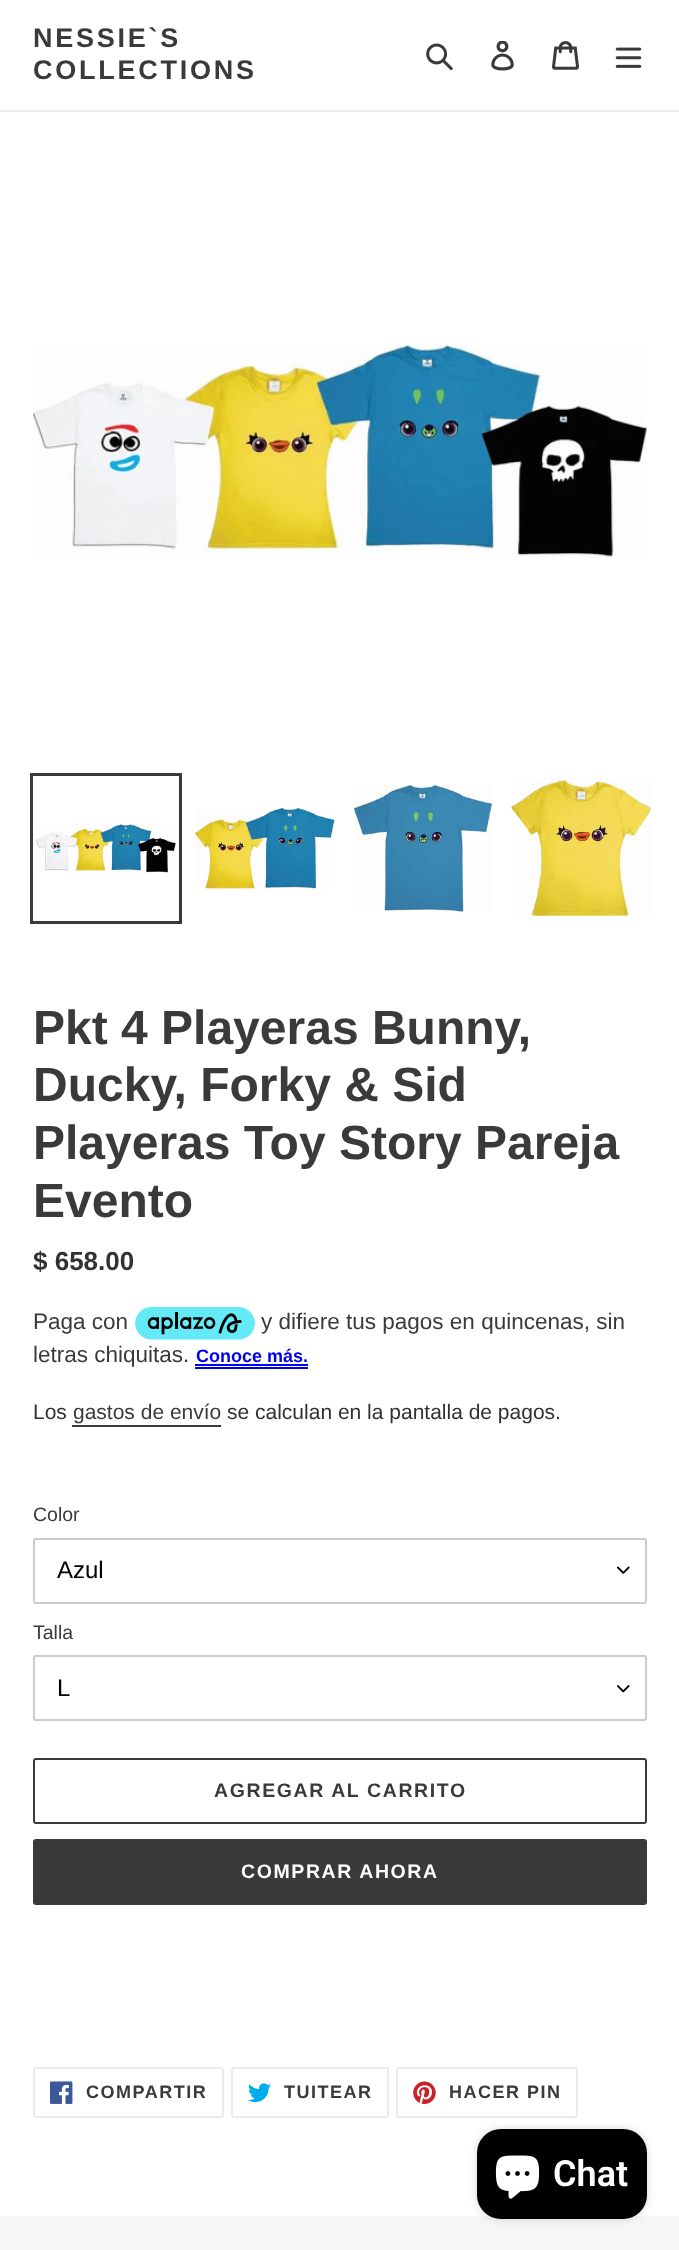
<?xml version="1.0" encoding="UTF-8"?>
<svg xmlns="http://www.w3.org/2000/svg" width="679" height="2250">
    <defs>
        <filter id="blur1" x="-50%" y="-200%" width="200%" height="500%"><feGaussianBlur stdDeviation="4"/></filter>
    </defs>
    <rect width="100%" height="100%" fill="#FFFFFF"/>
    <rect x="0" y="110" width="679" height="2" fill="#EBEBEB"/>
    <text font-family="Liberation Sans" font-size="27" font-weight="700" letter-spacing="2.75" fill="#3A3A3A">
        <tspan x="33" y="47">NESSIE`S</tspan>
        <tspan x="33" y="79">COLLECTIONS</tspan>
    </text>
    <image x="426" y="43" width="27" height="28" href="img_01.png"/>
    <image x="491" y="41" width="23" height="30" href="img_02.png"/>
    <image x="552" y="41" width="27" height="29" href="img_03.png"/>
    <image x="615" y="47" width="27" height="21" href="img_04.png"/>
    <image x="33" y="343" width="614" height="215" href="img_05.png"/>
    <rect x="31.5" y="774.5" width="149" height="148" fill="none" stroke="#3A3A3A" stroke-width="3"/>
    <image x="36" y="823" width="140" height="50" href="img_06.png"/>
    <image x="195" y="804" width="140" height="86" href="img_07.png"/>
    <image x="354" y="784" width="138" height="131" href="img_08.png"/>
    <image x="511" y="778" width="140" height="138" href="img_09.png"/>
    <text font-family="Liberation Sans" font-size="48" font-weight="700" fill="#3A3A3A">
        <tspan x="33" y="1044">Pkt 4 Playeras Bunny,</tspan>
        <tspan x="33" y="1101">Ducky, Forky &amp; Sid</tspan>
        <tspan x="33" y="1159">Playeras Toy Story Pareja</tspan>
        <tspan x="33" y="1217">Evento</tspan>
    </text>
    <text x="33" y="1270" font-family="Liberation Sans" font-size="26" font-weight="700" fill="#333232">$ 658.00</text>
    <text x="33" y="1329" font-family="Liberation Sans" font-size="22.5" fill="#3A3A3A">Paga con</text>
    <image x="135" y="1307" width="120" height="33" href="img_10.png"/>
    <text x="261" y="1329" font-family="Liberation Sans" font-size="22.5" fill="#3A3A3A">y difiere tus pagos en quincenas, sin</text>
    <text x="33" y="1362" font-family="Liberation Sans" font-size="22.5" fill="#3A3A3A">letras chiquitas.</text>
    <text x="196" y="1362" font-family="Liberation Sans" font-size="18" font-weight="700" fill="#0000EE">Conoce más.</text>
    <rect x="195" y="1367" width="113" height="2" fill="#0000EE"/>
    <rect x="195" y="1364" width="113" height="2" fill="#0000EE"/>
    <text x="33" y="1419" font-family="Liberation Sans" font-size="21" fill="#333232">Los</text>
    <text x="73" y="1419" font-family="Liberation Sans" font-size="21" fill="#3A3A3A">gastos de envío</text>
    <rect x="72" y="1425" width="149" height="2" fill="#3A3A3A"/>
    <text x="227" y="1419" font-family="Liberation Sans" font-size="21" fill="#333232">se calculan en la pantalla de pagos.</text>
    <text x="33" y="1521" font-family="Liberation Sans" font-size="19.5" fill="#3A3A3A">Color</text>
    <image x="617" y="1566" width="13" height="8" href="img_11.png"/>
    <rect x="34" y="1539" width="612" height="64" rx="2" fill="none" stroke="#CCCCCC" stroke-width="2"/>
    <text x="57" y="1578" font-family="Liberation Sans" font-size="24" fill="#000000">Azul</text>
    <text x="33" y="1639" font-family="Liberation Sans" font-size="19.5" fill="#3A3A3A">Talla</text>
    <image x="617" y="1685" width="13" height="8" href="img_12.png"/>
    <rect x="34" y="1656" width="612" height="64" rx="2" fill="none" stroke="#CCCCCC" stroke-width="2"/>
    <text x="57" y="1696" font-family="Liberation Sans" font-size="24" fill="#000000">L</text>
    <rect x="34" y="1759" width="612" height="64" rx="2" fill="none" stroke="#3A3A3A" stroke-width="2"/>
    <text x="214" y="1797" font-family="Liberation Sans" font-size="19.5" font-weight="700" letter-spacing="1.6" fill="#3A3A3A">AGREGAR AL CARRITO</text>
    <rect x="33" y="1839" width="614" height="66" rx="3" fill="#3A3A3A"/>
    <text x="241" y="1878" font-family="Liberation Sans" font-size="19.5" font-weight="700" letter-spacing="1.6" fill="#FFFFFF">COMPRAR AHORA</text>
    <rect x="34" y="2068" width="189" height="49" rx="2" fill="none" stroke="#EBEBEB" stroke-width="2"/>
    <image x="50" y="2081" width="23" height="23" href="img_13.png"/>
    <text x="86" y="2098" font-family="Liberation Sans" font-size="18" font-weight="700" letter-spacing="1.5" fill="#3A3A3A">COMPARTIR</text>
    <rect x="232" y="2068" width="156" height="49" rx="2" fill="none" stroke="#EBEBEB" stroke-width="2"/>
    <image x="248" y="2083" width="23" height="20" href="img_14.png"/>
    <text x="284" y="2098" font-family="Liberation Sans" font-size="18" font-weight="700" letter-spacing="1.5" fill="#3A3A3A">TUITEAR</text>
    <rect x="397" y="2068" width="180" height="49" rx="2" fill="none" stroke="#EBEBEB" stroke-width="2"/>
    <image x="413" y="2081" width="23" height="23" href="img_15.png"/>
    <text x="449" y="2098" font-family="Liberation Sans" font-size="18" font-weight="700" letter-spacing="1.5" fill="#3A3A3A">HACER PIN</text>
    <rect x="0" y="2216" width="679" height="34" fill="#F6F6F6"/>
    <rect x="477" y="2129" width="170" height="90" rx="24" fill="#000000" fill-opacity="0.15" filter="url(#blur1)"/>
    <rect x="477" y="2129" width="170" height="90" rx="24" fill="#000000"/>
    <image x="495" y="2155" width="45" height="44" href="img_16.png"/>
    <text x="553" y="2186" font-family="Roboto" font-size="36" font-weight="600" fill="#FFFFFF">Chat</text>
</svg>
